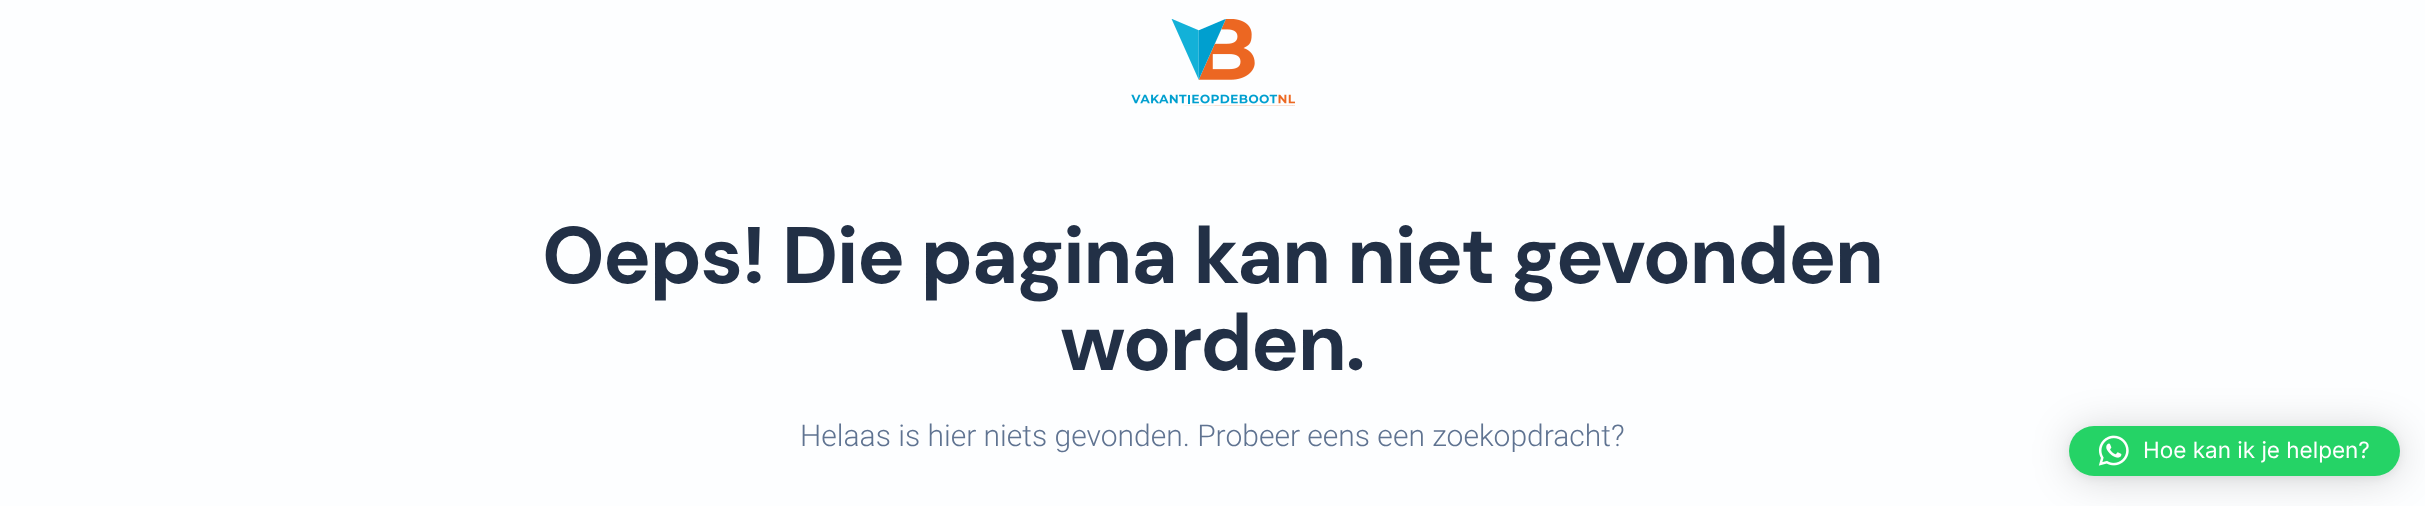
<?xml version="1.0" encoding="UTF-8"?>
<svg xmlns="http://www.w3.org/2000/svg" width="2425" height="506">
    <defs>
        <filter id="blur1" x="-50%" y="-200%" width="200%" height="500%"><feGaussianBlur stdDeviation="20"/></filter>
        <filter id="blur2" x="-50%" y="-200%" width="200%" height="500%"><feGaussianBlur stdDeviation="4"/></filter>
    </defs>
    <rect width="100%" height="100%" fill="#FDFEFF"/>
    <image x="1131" y="19" width="164" height="87" href="img_01.png"/>
    <text x="542" y="283" font-family="DM Sans" font-size="80" font-weight="700" letter-spacing="-1.6" fill="#223046">Oeps! Die pagina kan niet gevonden</text>
    <text x="1060" y="370" font-family="DM Sans" font-size="80" font-weight="700" letter-spacing="-1.6" fill="#223046">worden.</text>
    <text x="800" y="446" font-family="Roboto" font-size="30" font-weight="300" fill="#5F7391">Helaas is hier niets gevonden. Probeer eens een zoekopdracht?</text>
    <rect x="2069" y="429" width="331" height="50" rx="25" fill="#000000" fill-opacity="0.16" filter="url(#blur1)"/>
    <rect x="2069" y="428" width="331" height="50" rx="25" fill="#000000" fill-opacity="0.06" filter="url(#blur2)"/>
    <rect x="2069" y="426" width="331" height="50" rx="25" fill="#25D366"/>
    <image x="2098" y="435" width="31" height="31" href="img_02.png"/>
    <text x="2143" y="458" font-family="Inter" font-size="22.5" fill="#FFFFFF">Hoe kan ik je helpen?</text>
</svg>
